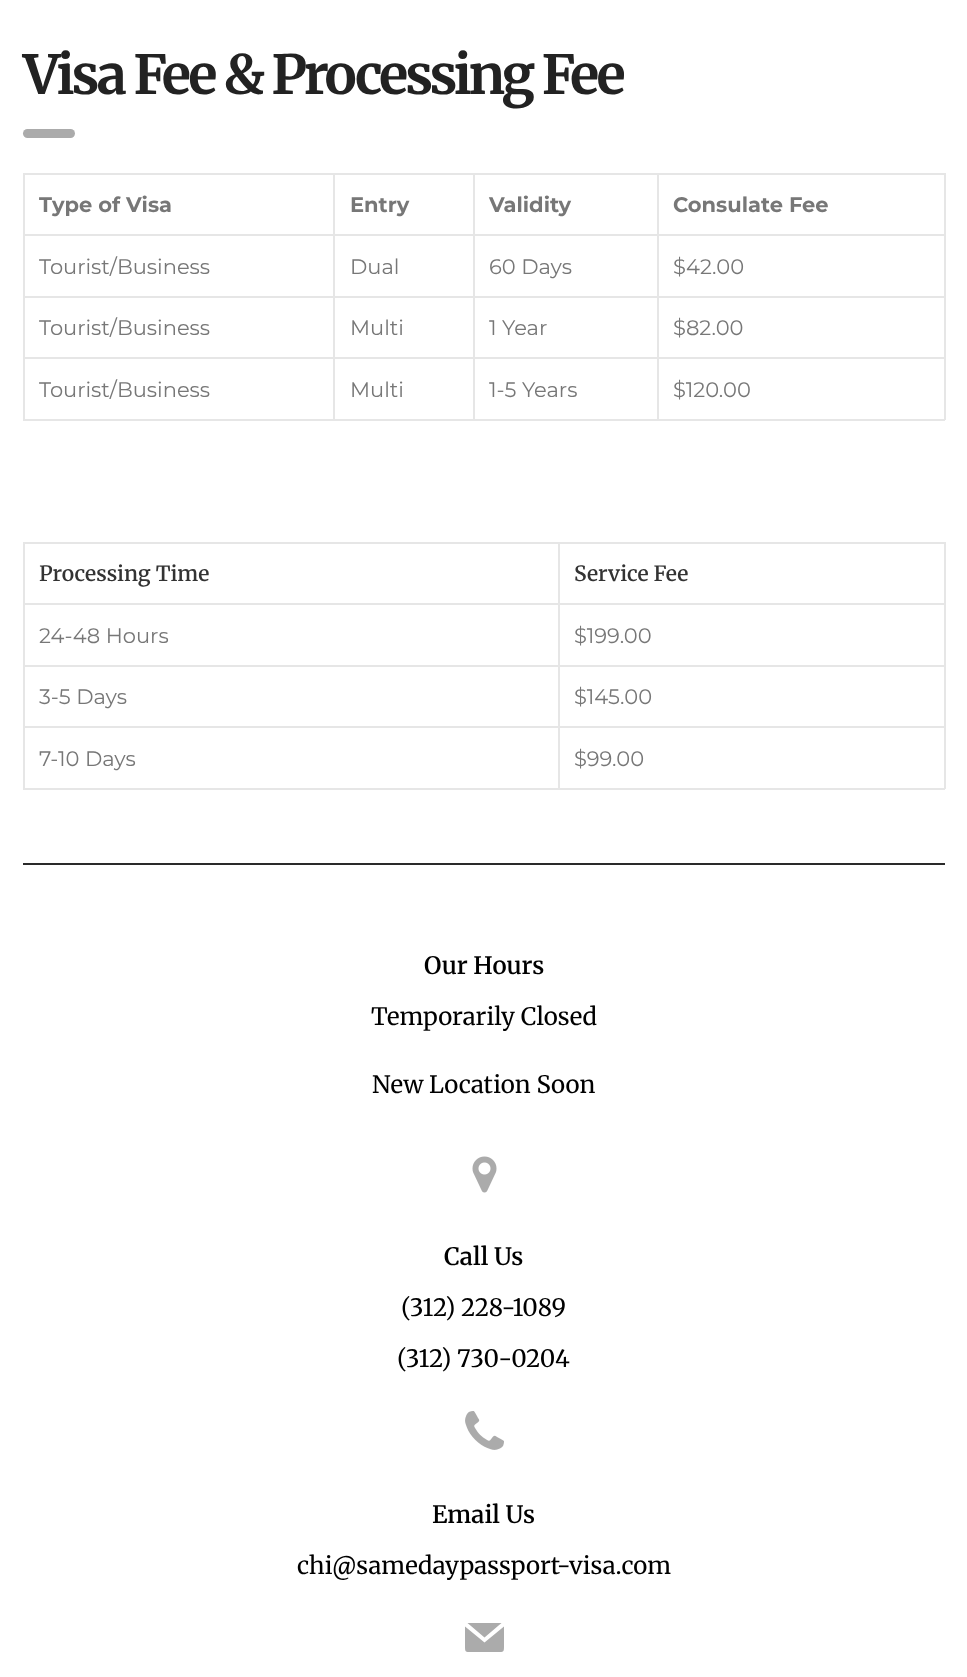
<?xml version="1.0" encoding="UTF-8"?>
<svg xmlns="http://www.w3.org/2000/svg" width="967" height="1677">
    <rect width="100%" height="100%" fill="#FFFFFF"/>
    <text x="23" y="94" font-family="Merriweather" font-size="54" font-weight="700" letter-spacing="-3.25" fill="#222222">Visa Fee &amp; Processing Fee</text>
    <rect x="23" y="129" width="52" height="9" rx="4.5" fill="#ABABAB"/>
    <rect x="657" y="173" width="288" height="2" fill="#E6E6E6"/>
    <rect x="657" y="234" width="288" height="2" fill="#E6E6E6"/>
    <rect x="657" y="296" width="288" height="2" fill="#E6E6E6"/>
    <rect x="657" y="357" width="288" height="2" fill="#E6E6E6"/>
    <rect x="944" y="357" width="2" height="63" fill="#E6E6E6"/>
    <rect x="657" y="419" width="288" height="2" fill="#E6E6E6"/>
    <rect x="657" y="357" width="2" height="63" fill="#E6E6E6"/>
    <rect x="473" y="357" width="186" height="2" fill="#E6E6E6"/>
    <rect x="657" y="296" width="2" height="63" fill="#E6E6E6"/>
    <rect x="473" y="296" width="186" height="2" fill="#E6E6E6"/>
    <rect x="657" y="234" width="2" height="63" fill="#E6E6E6"/>
    <rect x="473" y="234" width="186" height="2" fill="#E6E6E6"/>
    <rect x="657" y="173" width="2" height="63" fill="#E6E6E6"/>
    <rect x="473" y="173" width="186" height="2" fill="#E6E6E6"/>
    <rect x="473" y="419" width="186" height="2" fill="#E6E6E6"/>
    <rect x="473" y="357" width="2" height="63" fill="#E6E6E6"/>
    <rect x="333" y="357" width="141" height="2" fill="#E6E6E6"/>
    <rect x="473" y="296" width="2" height="63" fill="#E6E6E6"/>
    <rect x="333" y="296" width="141" height="2" fill="#E6E6E6"/>
    <rect x="473" y="234" width="2" height="63" fill="#E6E6E6"/>
    <rect x="333" y="234" width="141" height="2" fill="#E6E6E6"/>
    <rect x="473" y="173" width="2" height="63" fill="#E6E6E6"/>
    <rect x="333" y="173" width="141" height="2" fill="#E6E6E6"/>
    <rect x="333" y="419" width="141" height="2" fill="#E6E6E6"/>
    <rect x="333" y="357" width="2" height="63" fill="#E6E6E6"/>
    <rect x="23" y="357" width="312" height="2" fill="#E6E6E6"/>
    <rect x="333" y="296" width="2" height="63" fill="#E6E6E6"/>
    <rect x="23" y="296" width="312" height="2" fill="#E6E6E6"/>
    <rect x="333" y="234" width="2" height="63" fill="#E6E6E6"/>
    <rect x="23" y="234" width="312" height="2" fill="#E6E6E6"/>
    <rect x="333" y="173" width="2" height="63" fill="#E6E6E6"/>
    <rect x="23" y="173" width="312" height="2" fill="#E6E6E6"/>
    <rect x="23" y="419" width="312" height="2" fill="#E6E6E6"/>
    <rect x="23" y="357" width="2" height="63" fill="#E6E6E6"/>
    <rect x="23" y="296" width="2" height="63" fill="#E6E6E6"/>
    <rect x="23" y="234" width="2" height="63" fill="#E6E6E6"/>
    <rect x="23" y="173" width="2" height="63" fill="#E6E6E6"/>
    <text x="39" y="212" font-family="Montserrat" font-size="21" font-weight="700" fill="#777777">Type of Visa</text>
    <text x="350" y="212" font-family="Montserrat" font-size="21" font-weight="700" fill="#777777">Entry</text>
    <text x="489" y="212" font-family="Montserrat" font-size="21" font-weight="700" fill="#777777">Validity</text>
    <rect x="944" y="296" width="2" height="63" fill="#E6E6E6"/>
    <rect x="944" y="234" width="2" height="63" fill="#E6E6E6"/>
    <rect x="944" y="173" width="2" height="63" fill="#E6E6E6"/>
    <text x="673" y="212" font-family="Montserrat" font-size="21" font-weight="700" fill="#777777">Consulate Fee</text>
    <text x="39" y="274" font-family="Montserrat" font-size="21" fill="#777777">Tourist/Business</text>
    <text x="350" y="274" font-family="Montserrat" font-size="21" fill="#777777">Dual</text>
    <text x="489" y="274" font-family="Montserrat" font-size="21" fill="#777777">60 Days</text>
    <text x="673" y="274" font-family="Montserrat" font-size="21" fill="#777777">$42.00</text>
    <text x="39" y="335" font-family="Montserrat" font-size="21" fill="#777777">Tourist/Business</text>
    <text x="350" y="335" font-family="Montserrat" font-size="21" fill="#777777">Multi</text>
    <text x="489" y="335" font-family="Montserrat" font-size="21" fill="#777777">1 Year</text>
    <text x="673" y="335" font-family="Montserrat" font-size="21" fill="#777777">$82.00</text>
    <text x="39" y="397" font-family="Montserrat" font-size="21" fill="#777777">Tourist/Business</text>
    <text x="350" y="397" font-family="Montserrat" font-size="21" fill="#777777">Multi</text>
    <text x="489" y="397" font-family="Montserrat" font-size="21" fill="#777777">1-5 Years</text>
    <text x="673" y="397" font-family="Montserrat" font-size="21" fill="#777777">$120.00</text>
    <rect x="558" y="542" width="387" height="2" fill="#E6E6E6"/>
    <rect x="558" y="603" width="387" height="2" fill="#E6E6E6"/>
    <rect x="558" y="665" width="387" height="2" fill="#E6E6E6"/>
    <rect x="558" y="726" width="387" height="2" fill="#E6E6E6"/>
    <rect x="944" y="726" width="2" height="63" fill="#E6E6E6"/>
    <rect x="558" y="788" width="387" height="2" fill="#E6E6E6"/>
    <rect x="558" y="726" width="2" height="63" fill="#E6E6E6"/>
    <rect x="23" y="726" width="537" height="2" fill="#E6E6E6"/>
    <rect x="558" y="665" width="2" height="63" fill="#E6E6E6"/>
    <rect x="23" y="665" width="537" height="2" fill="#E6E6E6"/>
    <rect x="558" y="603" width="2" height="63" fill="#E6E6E6"/>
    <rect x="23" y="603" width="537" height="2" fill="#E6E6E6"/>
    <rect x="558" y="542" width="2" height="63" fill="#E6E6E6"/>
    <rect x="23" y="542" width="537" height="2" fill="#E6E6E6"/>
    <rect x="23" y="788" width="537" height="2" fill="#E6E6E6"/>
    <rect x="23" y="726" width="2" height="63" fill="#E6E6E6"/>
    <rect x="23" y="665" width="2" height="63" fill="#E6E6E6"/>
    <rect x="23" y="603" width="2" height="63" fill="#E6E6E6"/>
    <rect x="23" y="542" width="2" height="63" fill="#E6E6E6"/>
    <text x="39" y="581" font-family="Merriweather" font-size="21" font-weight="600" fill="#333333">Processing Time</text>
    <rect x="944" y="665" width="2" height="63" fill="#E6E6E6"/>
    <rect x="944" y="603" width="2" height="63" fill="#E6E6E6"/>
    <rect x="944" y="542" width="2" height="63" fill="#E6E6E6"/>
    <text x="574" y="581" font-family="Merriweather" font-size="21" font-weight="600" fill="#333333">Service Fee</text>
    <text x="39" y="643" font-family="Montserrat" font-size="21" fill="#777777">24-48 Hours</text>
    <text x="574" y="643" font-family="Montserrat" font-size="21" fill="#777777">$199.00</text>
    <text x="39" y="704" font-family="Montserrat" font-size="21" fill="#777777">3-5 Days</text>
    <text x="574" y="704" font-family="Montserrat" font-size="21" fill="#777777">$145.00</text>
    <text x="39" y="766" font-family="Montserrat" font-size="21" fill="#777777">7-10 Days</text>
    <text x="574" y="766" font-family="Montserrat" font-size="21" fill="#777777">$99.00</text>
    <rect x="23" y="863" width="922" height="2" fill="#2A2A2A"/>
    <text x="424" y="974" font-family="Merriweather" font-size="24" font-weight="600" fill="#000000">Our Hours</text>
    <text x="371" y="1025" font-family="Merriweather" font-size="24" fill="#000000">Temporarily Closed</text>
    <text x="372" y="1093" font-family="Merriweather" font-size="24" fill="#000000">New Location Soon</text>
    <image x="472" y="1156" width="25" height="37" href="img_01.png"/>
    <text x="444" y="1265" font-family="Merriweather" font-size="24" font-weight="600" fill="#000000">Call Us</text>
    <text x="401" y="1316" font-family="Merriweather" font-size="24" fill="#000000">(312) 228-1089</text>
    <text x="397" y="1367" font-family="Merriweather" font-size="24" fill="#000000">(312) 730-0204</text>
    <image x="465" y="1411" width="39" height="39" href="img_02.png"/>
    <text x="432" y="1523" font-family="Merriweather" font-size="24" font-weight="600" fill="#000000">Email Us</text>
    <text x="297" y="1574" font-family="Merriweather" font-size="24" fill="#000000">chi@samedaypassport-visa.com</text>
    <path d="M 504 1626.5 V 1646 C 504 1653 503.5 1652 496 1652 H 473 C 465.5 1652 465 1653 465 1646 V 1626.5 L 484.5 1642.5 Z M 501.5 1623 H 467.5 L 484.5 1637.5 Z" fill="#ABABAB"/>
</svg>
